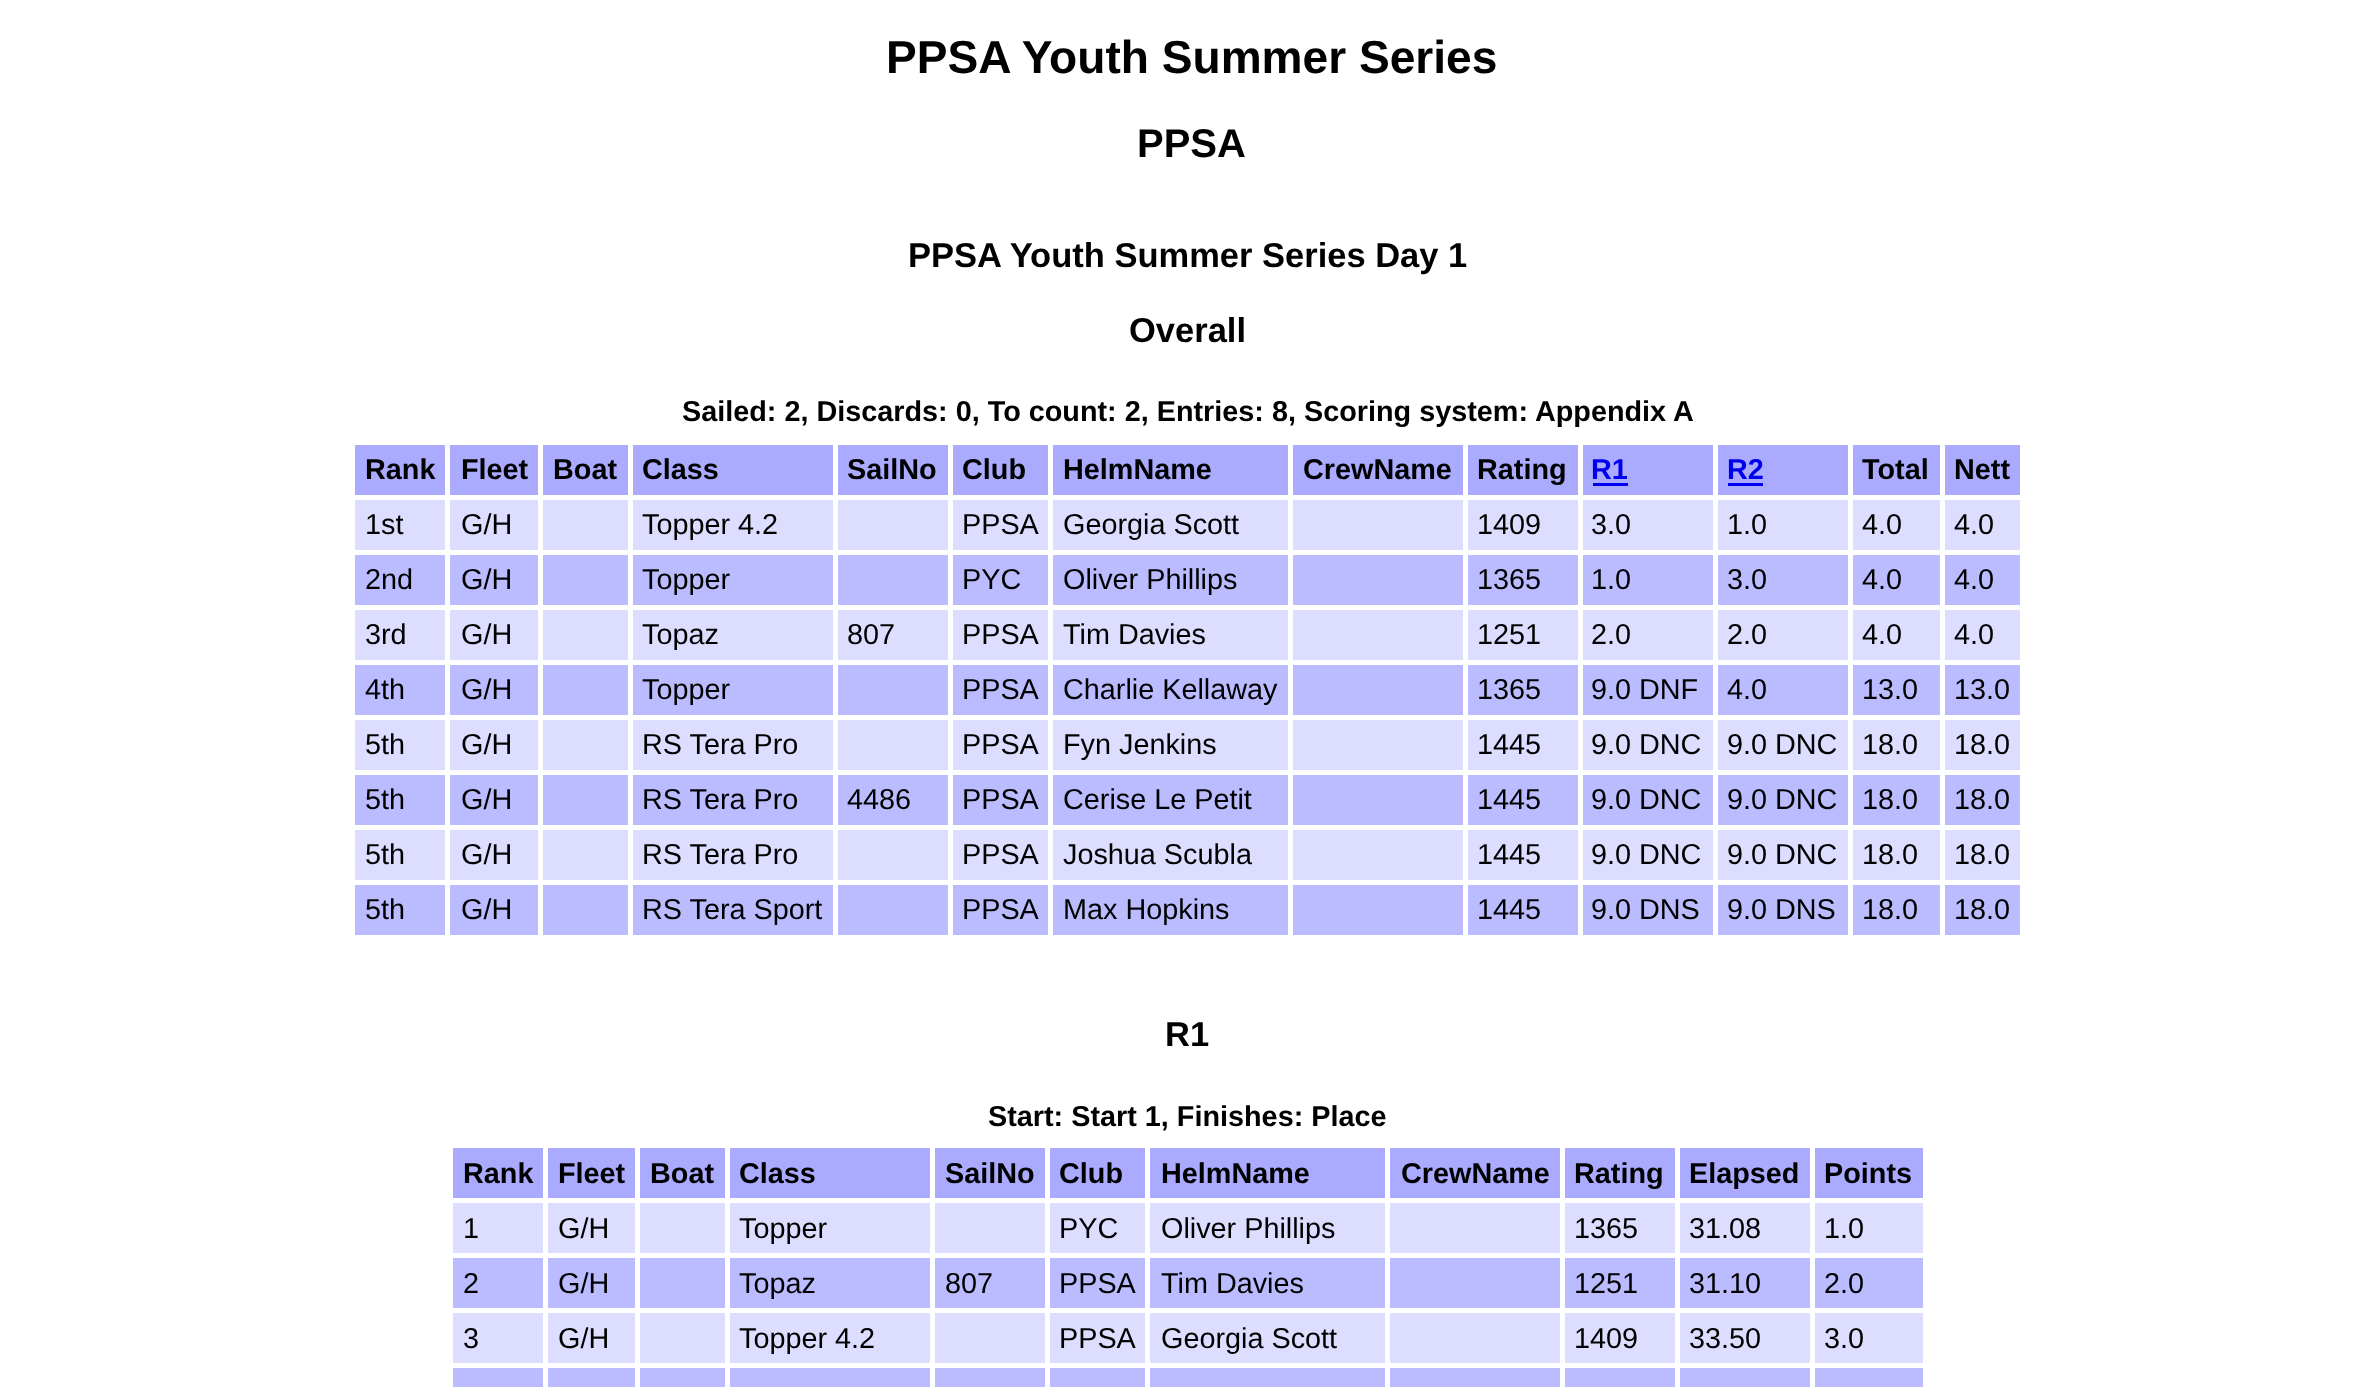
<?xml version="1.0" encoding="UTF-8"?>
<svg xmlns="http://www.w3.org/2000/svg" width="2375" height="1387">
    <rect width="100%" height="100%" fill="#FFFFFF"/>
    <text x="886" y="73" font-family="Liberation Sans" font-size="46.1" font-weight="700" fill="#000000">PPSA Youth Summer Series</text>
    <text x="1137" y="157" font-family="Liberation Sans" font-size="40" font-weight="700" fill="#000000">PPSA</text>
    <text x="908" y="267" font-family="Liberation Sans" font-size="34.5" font-weight="700" fill="#000000">PPSA Youth Summer Series Day 1</text>
    <text x="1129" y="342" font-family="Liberation Sans" font-size="34.5" font-weight="700" fill="#000000">Overall</text>
    <text x="682" y="421" font-family="Liberation Sans" font-size="28.8" font-weight="700" fill="#000000">Sailed: 2, Discards: 0, To count: 2, Entries: 8, Scoring system: Appendix A</text>
    <rect x="355" y="445" width="90" height="50" fill="#AAAAFF"/>
    <text x="365" y="479" font-family="Liberation Sans" font-size="28.8" font-weight="700" fill="#000000">Rank</text>
    <rect x="450" y="445" width="88" height="50" fill="#AAAAFF"/>
    <text x="461" y="479" font-family="Liberation Sans" font-size="28.8" font-weight="700" fill="#000000">Fleet</text>
    <rect x="543" y="445" width="85" height="50" fill="#AAAAFF"/>
    <text x="553" y="479" font-family="Liberation Sans" font-size="28.8" font-weight="700" fill="#000000">Boat</text>
    <rect x="633" y="445" width="200" height="50" fill="#AAAAFF"/>
    <text x="642" y="479" font-family="Liberation Sans" font-size="28.8" font-weight="700" fill="#000000">Class</text>
    <rect x="838" y="445" width="110" height="50" fill="#AAAAFF"/>
    <text x="847" y="479" font-family="Liberation Sans" font-size="28.8" font-weight="700" fill="#000000">SailNo</text>
    <rect x="953" y="445" width="95" height="50" fill="#AAAAFF"/>
    <text x="962" y="479" font-family="Liberation Sans" font-size="28.8" font-weight="700" fill="#000000">Club</text>
    <rect x="1053" y="445" width="235" height="50" fill="#AAAAFF"/>
    <text x="1063" y="479" font-family="Liberation Sans" font-size="28.8" font-weight="700" fill="#000000">HelmName</text>
    <rect x="1293" y="445" width="170" height="50" fill="#AAAAFF"/>
    <text x="1303" y="479" font-family="Liberation Sans" font-size="28.8" font-weight="700" fill="#000000">CrewName</text>
    <rect x="1468" y="445" width="110" height="50" fill="#AAAAFF"/>
    <text x="1477" y="479" font-family="Liberation Sans" font-size="28.8" font-weight="700" fill="#000000">Rating</text>
    <rect x="1583" y="445" width="130" height="50" fill="#AAAAFF"/>
    <text x="1591" y="479" font-family="Liberation Sans" font-size="28.8" font-weight="700" fill="#0000EE">R1</text>
    <rect x="1593" y="483" width="35" height="3" fill="#0000EE"/>
    <rect x="1718" y="445" width="130" height="50" fill="#AAAAFF"/>
    <text x="1727" y="479" font-family="Liberation Sans" font-size="28.8" font-weight="700" fill="#0000EE">R2</text>
    <rect x="1728" y="483" width="35" height="3" fill="#0000EE"/>
    <rect x="1853" y="445" width="87" height="50" fill="#AAAAFF"/>
    <text x="1862" y="479" font-family="Liberation Sans" font-size="28.8" font-weight="700" fill="#000000">Total</text>
    <rect x="1945" y="445" width="75" height="50" fill="#AAAAFF"/>
    <text x="1954" y="479" font-family="Liberation Sans" font-size="28.8" font-weight="700" fill="#000000">Nett</text>
    <rect x="355" y="500" width="1665" height="50" fill="#DDDDFF"/>
    <text x="365" y="534" font-family="Liberation Sans" font-size="28.8" fill="#000000">1st</text>
    <text x="461" y="534" font-family="Liberation Sans" font-size="28.8" fill="#000000">G/H</text>
    <text x="642" y="534" font-family="Liberation Sans" font-size="28.8" fill="#000000">Topper 4.2</text>
    <text x="962" y="534" font-family="Liberation Sans" font-size="28.8" fill="#000000">PPSA</text>
    <text x="1063" y="534" font-family="Liberation Sans" font-size="28.8" fill="#000000">Georgia Scott</text>
    <text x="1477" y="534" font-family="Liberation Sans" font-size="28.8" fill="#000000">1409</text>
    <text x="1591" y="534" font-family="Liberation Sans" font-size="28.8" fill="#000000">3.0</text>
    <text x="1727" y="534" font-family="Liberation Sans" font-size="28.8" fill="#000000">1.0</text>
    <text x="1862" y="534" font-family="Liberation Sans" font-size="28.8" fill="#000000">4.0</text>
    <text x="1954" y="534" font-family="Liberation Sans" font-size="28.8" fill="#000000">4.0</text>
    <rect x="355" y="555" width="1665" height="50" fill="#BBBBFF"/>
    <text x="365" y="589" font-family="Liberation Sans" font-size="28.8" fill="#000000">2nd</text>
    <text x="461" y="589" font-family="Liberation Sans" font-size="28.8" fill="#000000">G/H</text>
    <text x="642" y="589" font-family="Liberation Sans" font-size="28.8" fill="#000000">Topper</text>
    <text x="962" y="589" font-family="Liberation Sans" font-size="28.8" fill="#000000">PYC</text>
    <text x="1063" y="589" font-family="Liberation Sans" font-size="28.8" fill="#000000">Oliver Phillips</text>
    <text x="1477" y="589" font-family="Liberation Sans" font-size="28.8" fill="#000000">1365</text>
    <text x="1591" y="589" font-family="Liberation Sans" font-size="28.8" fill="#000000">1.0</text>
    <text x="1727" y="589" font-family="Liberation Sans" font-size="28.8" fill="#000000">3.0</text>
    <text x="1862" y="589" font-family="Liberation Sans" font-size="28.8" fill="#000000">4.0</text>
    <text x="1954" y="589" font-family="Liberation Sans" font-size="28.8" fill="#000000">4.0</text>
    <rect x="355" y="610" width="1665" height="50" fill="#DDDDFF"/>
    <text x="365" y="644" font-family="Liberation Sans" font-size="28.8" fill="#000000">3rd</text>
    <text x="461" y="644" font-family="Liberation Sans" font-size="28.8" fill="#000000">G/H</text>
    <text x="642" y="644" font-family="Liberation Sans" font-size="28.8" fill="#000000">Topaz</text>
    <text x="847" y="644" font-family="Liberation Sans" font-size="28.8" fill="#000000">807</text>
    <text x="962" y="644" font-family="Liberation Sans" font-size="28.8" fill="#000000">PPSA</text>
    <text x="1063" y="644" font-family="Liberation Sans" font-size="28.8" fill="#000000">Tim Davies</text>
    <text x="1477" y="644" font-family="Liberation Sans" font-size="28.8" fill="#000000">1251</text>
    <text x="1591" y="644" font-family="Liberation Sans" font-size="28.8" fill="#000000">2.0</text>
    <text x="1727" y="644" font-family="Liberation Sans" font-size="28.8" fill="#000000">2.0</text>
    <text x="1862" y="644" font-family="Liberation Sans" font-size="28.8" fill="#000000">4.0</text>
    <text x="1954" y="644" font-family="Liberation Sans" font-size="28.8" fill="#000000">4.0</text>
    <rect x="355" y="665" width="1665" height="50" fill="#BBBBFF"/>
    <text x="365" y="699" font-family="Liberation Sans" font-size="28.8" fill="#000000">4th</text>
    <text x="461" y="699" font-family="Liberation Sans" font-size="28.8" fill="#000000">G/H</text>
    <text x="642" y="699" font-family="Liberation Sans" font-size="28.8" fill="#000000">Topper</text>
    <text x="962" y="699" font-family="Liberation Sans" font-size="28.8" fill="#000000">PPSA</text>
    <text x="1063" y="699" font-family="Liberation Sans" font-size="28.8" fill="#000000">Charlie Kellaway</text>
    <text x="1477" y="699" font-family="Liberation Sans" font-size="28.8" fill="#000000">1365</text>
    <text x="1591" y="699" font-family="Liberation Sans" font-size="28.8" fill="#000000">9.0 DNF</text>
    <text x="1727" y="699" font-family="Liberation Sans" font-size="28.8" fill="#000000">4.0</text>
    <text x="1862" y="699" font-family="Liberation Sans" font-size="28.8" fill="#000000">13.0</text>
    <text x="1954" y="699" font-family="Liberation Sans" font-size="28.8" fill="#000000">13.0</text>
    <rect x="355" y="720" width="1665" height="50" fill="#DDDDFF"/>
    <text x="365" y="754" font-family="Liberation Sans" font-size="28.8" fill="#000000">5th</text>
    <text x="461" y="754" font-family="Liberation Sans" font-size="28.8" fill="#000000">G/H</text>
    <text x="642" y="754" font-family="Liberation Sans" font-size="28.8" fill="#000000">RS Tera Pro</text>
    <text x="962" y="754" font-family="Liberation Sans" font-size="28.8" fill="#000000">PPSA</text>
    <text x="1063" y="754" font-family="Liberation Sans" font-size="28.8" fill="#000000">Fyn Jenkins</text>
    <text x="1477" y="754" font-family="Liberation Sans" font-size="28.8" fill="#000000">1445</text>
    <text x="1591" y="754" font-family="Liberation Sans" font-size="28.8" fill="#000000">9.0 DNC</text>
    <text x="1727" y="754" font-family="Liberation Sans" font-size="28.8" fill="#000000">9.0 DNC</text>
    <text x="1862" y="754" font-family="Liberation Sans" font-size="28.8" fill="#000000">18.0</text>
    <text x="1954" y="754" font-family="Liberation Sans" font-size="28.8" fill="#000000">18.0</text>
    <rect x="355" y="775" width="1665" height="50" fill="#BBBBFF"/>
    <text x="365" y="809" font-family="Liberation Sans" font-size="28.8" fill="#000000">5th</text>
    <text x="461" y="809" font-family="Liberation Sans" font-size="28.8" fill="#000000">G/H</text>
    <text x="642" y="809" font-family="Liberation Sans" font-size="28.8" fill="#000000">RS Tera Pro</text>
    <text x="847" y="809" font-family="Liberation Sans" font-size="28.8" fill="#000000">4486</text>
    <text x="962" y="809" font-family="Liberation Sans" font-size="28.8" fill="#000000">PPSA</text>
    <text x="1063" y="809" font-family="Liberation Sans" font-size="28.8" fill="#000000">Cerise Le Petit</text>
    <text x="1477" y="809" font-family="Liberation Sans" font-size="28.8" fill="#000000">1445</text>
    <text x="1591" y="809" font-family="Liberation Sans" font-size="28.8" fill="#000000">9.0 DNC</text>
    <text x="1727" y="809" font-family="Liberation Sans" font-size="28.8" fill="#000000">9.0 DNC</text>
    <text x="1862" y="809" font-family="Liberation Sans" font-size="28.8" fill="#000000">18.0</text>
    <text x="1954" y="809" font-family="Liberation Sans" font-size="28.8" fill="#000000">18.0</text>
    <rect x="355" y="830" width="1665" height="50" fill="#DDDDFF"/>
    <text x="365" y="864" font-family="Liberation Sans" font-size="28.8" fill="#000000">5th</text>
    <text x="461" y="864" font-family="Liberation Sans" font-size="28.8" fill="#000000">G/H</text>
    <text x="642" y="864" font-family="Liberation Sans" font-size="28.8" fill="#000000">RS Tera Pro</text>
    <text x="962" y="864" font-family="Liberation Sans" font-size="28.8" fill="#000000">PPSA</text>
    <text x="1063" y="864" font-family="Liberation Sans" font-size="28.8" fill="#000000">Joshua Scubla</text>
    <text x="1477" y="864" font-family="Liberation Sans" font-size="28.8" fill="#000000">1445</text>
    <text x="1591" y="864" font-family="Liberation Sans" font-size="28.8" fill="#000000">9.0 DNC</text>
    <text x="1727" y="864" font-family="Liberation Sans" font-size="28.8" fill="#000000">9.0 DNC</text>
    <text x="1862" y="864" font-family="Liberation Sans" font-size="28.8" fill="#000000">18.0</text>
    <text x="1954" y="864" font-family="Liberation Sans" font-size="28.8" fill="#000000">18.0</text>
    <rect x="355" y="885" width="1665" height="50" fill="#BBBBFF"/>
    <text x="365" y="919" font-family="Liberation Sans" font-size="28.8" fill="#000000">5th</text>
    <rect x="445" y="495" width="5" height="445" fill="#FFFFFF"/>
    <text x="461" y="919" font-family="Liberation Sans" font-size="28.8" fill="#000000">G/H</text>
    <rect x="538" y="495" width="5" height="445" fill="#FFFFFF"/>
    <rect x="628" y="495" width="5" height="445" fill="#FFFFFF"/>
    <text x="642" y="919" font-family="Liberation Sans" font-size="28.8" fill="#000000">RS Tera Sport</text>
    <rect x="833" y="495" width="5" height="445" fill="#FFFFFF"/>
    <rect x="948" y="495" width="5" height="445" fill="#FFFFFF"/>
    <text x="962" y="919" font-family="Liberation Sans" font-size="28.8" fill="#000000">PPSA</text>
    <rect x="1048" y="495" width="5" height="445" fill="#FFFFFF"/>
    <text x="1063" y="919" font-family="Liberation Sans" font-size="28.8" fill="#000000">Max Hopkins</text>
    <rect x="1288" y="495" width="5" height="445" fill="#FFFFFF"/>
    <rect x="1463" y="495" width="5" height="445" fill="#FFFFFF"/>
    <text x="1477" y="919" font-family="Liberation Sans" font-size="28.8" fill="#000000">1445</text>
    <rect x="1578" y="495" width="5" height="445" fill="#FFFFFF"/>
    <text x="1591" y="919" font-family="Liberation Sans" font-size="28.8" fill="#000000">9.0 DNS</text>
    <rect x="1713" y="495" width="5" height="445" fill="#FFFFFF"/>
    <text x="1727" y="919" font-family="Liberation Sans" font-size="28.8" fill="#000000">9.0 DNS</text>
    <rect x="1848" y="495" width="5" height="445" fill="#FFFFFF"/>
    <text x="1862" y="919" font-family="Liberation Sans" font-size="28.8" fill="#000000">18.0</text>
    <rect x="1940" y="495" width="5" height="445" fill="#FFFFFF"/>
    <text x="1954" y="919" font-family="Liberation Sans" font-size="28.8" fill="#000000">18.0</text>
    <text x="1165" y="1046" font-family="Liberation Sans" font-size="34.5" font-weight="700" fill="#000000">R1</text>
    <text x="988" y="1126" font-family="Liberation Sans" font-size="28.8" font-weight="700" fill="#000000">Start: Start 1, Finishes: Place</text>
    <rect x="453" y="1148" width="90" height="50" fill="#AAAAFF"/>
    <text x="463" y="1183" font-family="Liberation Sans" font-size="28.8" font-weight="700" fill="#000000">Rank</text>
    <rect x="548" y="1148" width="87" height="50" fill="#AAAAFF"/>
    <text x="558" y="1183" font-family="Liberation Sans" font-size="28.8" font-weight="700" fill="#000000">Fleet</text>
    <rect x="640" y="1148" width="85" height="50" fill="#AAAAFF"/>
    <text x="650" y="1183" font-family="Liberation Sans" font-size="28.8" font-weight="700" fill="#000000">Boat</text>
    <rect x="730" y="1148" width="200" height="50" fill="#AAAAFF"/>
    <text x="739" y="1183" font-family="Liberation Sans" font-size="28.8" font-weight="700" fill="#000000">Class</text>
    <rect x="935" y="1148" width="110" height="50" fill="#AAAAFF"/>
    <text x="945" y="1183" font-family="Liberation Sans" font-size="28.8" font-weight="700" fill="#000000">SailNo</text>
    <rect x="1050" y="1148" width="95" height="50" fill="#AAAAFF"/>
    <text x="1059" y="1183" font-family="Liberation Sans" font-size="28.8" font-weight="700" fill="#000000">Club</text>
    <rect x="1150" y="1148" width="235" height="50" fill="#AAAAFF"/>
    <text x="1161" y="1183" font-family="Liberation Sans" font-size="28.8" font-weight="700" fill="#000000">HelmName</text>
    <rect x="1390" y="1148" width="170" height="50" fill="#AAAAFF"/>
    <text x="1401" y="1183" font-family="Liberation Sans" font-size="28.8" font-weight="700" fill="#000000">CrewName</text>
    <rect x="1565" y="1148" width="110" height="50" fill="#AAAAFF"/>
    <text x="1574" y="1183" font-family="Liberation Sans" font-size="28.8" font-weight="700" fill="#000000">Rating</text>
    <rect x="1680" y="1148" width="130" height="50" fill="#AAAAFF"/>
    <text x="1689" y="1183" font-family="Liberation Sans" font-size="28.8" font-weight="700" fill="#000000">Elapsed</text>
    <rect x="1815" y="1148" width="108" height="50" fill="#AAAAFF"/>
    <text x="1824" y="1183" font-family="Liberation Sans" font-size="28.8" font-weight="700" fill="#000000">Points</text>
    <rect x="453" y="1368" width="1470" height="19" fill="#BBBBFF"/>
    <rect x="453" y="1203" width="1470" height="50" fill="#DDDDFF"/>
    <rect x="453" y="1258" width="1470" height="50" fill="#BBBBFF"/>
    <rect x="453" y="1313" width="1470" height="50" fill="#DDDDFF"/>
    <rect x="543" y="1198" width="5" height="189" fill="#FFFFFF"/>
    <rect x="635" y="1198" width="5" height="189" fill="#FFFFFF"/>
    <rect x="725" y="1198" width="5" height="189" fill="#FFFFFF"/>
    <rect x="930" y="1198" width="5" height="189" fill="#FFFFFF"/>
    <rect x="1045" y="1198" width="5" height="189" fill="#FFFFFF"/>
    <rect x="1145" y="1198" width="5" height="189" fill="#FFFFFF"/>
    <rect x="1385" y="1198" width="5" height="189" fill="#FFFFFF"/>
    <rect x="1560" y="1198" width="5" height="189" fill="#FFFFFF"/>
    <rect x="1675" y="1198" width="5" height="189" fill="#FFFFFF"/>
    <rect x="1810" y="1198" width="5" height="189" fill="#FFFFFF"/>
    <text x="463" y="1238" font-family="Liberation Sans" font-size="28.8" fill="#000000">1</text>
    <text x="558" y="1238" font-family="Liberation Sans" font-size="28.8" fill="#000000">G/H</text>
    <text x="739" y="1238" font-family="Liberation Sans" font-size="28.8" fill="#000000">Topper</text>
    <text x="1059" y="1238" font-family="Liberation Sans" font-size="28.8" fill="#000000">PYC</text>
    <text x="1161" y="1238" font-family="Liberation Sans" font-size="28.8" fill="#000000">Oliver Phillips</text>
    <text x="1574" y="1238" font-family="Liberation Sans" font-size="28.8" fill="#000000">1365</text>
    <text x="1689" y="1238" font-family="Liberation Sans" font-size="28.8" fill="#000000">31.08</text>
    <text x="1824" y="1238" font-family="Liberation Sans" font-size="28.8" fill="#000000">1.0</text>
    <text x="463" y="1293" font-family="Liberation Sans" font-size="28.8" fill="#000000">2</text>
    <text x="558" y="1293" font-family="Liberation Sans" font-size="28.8" fill="#000000">G/H</text>
    <text x="739" y="1293" font-family="Liberation Sans" font-size="28.8" fill="#000000">Topaz</text>
    <text x="945" y="1293" font-family="Liberation Sans" font-size="28.8" fill="#000000">807</text>
    <text x="1059" y="1293" font-family="Liberation Sans" font-size="28.8" fill="#000000">PPSA</text>
    <text x="1161" y="1293" font-family="Liberation Sans" font-size="28.8" fill="#000000">Tim Davies</text>
    <text x="1574" y="1293" font-family="Liberation Sans" font-size="28.8" fill="#000000">1251</text>
    <text x="1689" y="1293" font-family="Liberation Sans" font-size="28.8" fill="#000000">31.10</text>
    <text x="1824" y="1293" font-family="Liberation Sans" font-size="28.8" fill="#000000">2.0</text>
    <text x="463" y="1348" font-family="Liberation Sans" font-size="28.8" fill="#000000">3</text>
    <text x="558" y="1348" font-family="Liberation Sans" font-size="28.8" fill="#000000">G/H</text>
    <text x="739" y="1348" font-family="Liberation Sans" font-size="28.8" fill="#000000">Topper 4.2</text>
    <text x="1059" y="1348" font-family="Liberation Sans" font-size="28.8" fill="#000000">PPSA</text>
    <text x="1161" y="1348" font-family="Liberation Sans" font-size="28.8" fill="#000000">Georgia Scott</text>
    <text x="1574" y="1348" font-family="Liberation Sans" font-size="28.8" fill="#000000">1409</text>
    <text x="1689" y="1348" font-family="Liberation Sans" font-size="28.8" fill="#000000">33.50</text>
    <text x="1824" y="1348" font-family="Liberation Sans" font-size="28.8" fill="#000000">3.0</text>
</svg>
